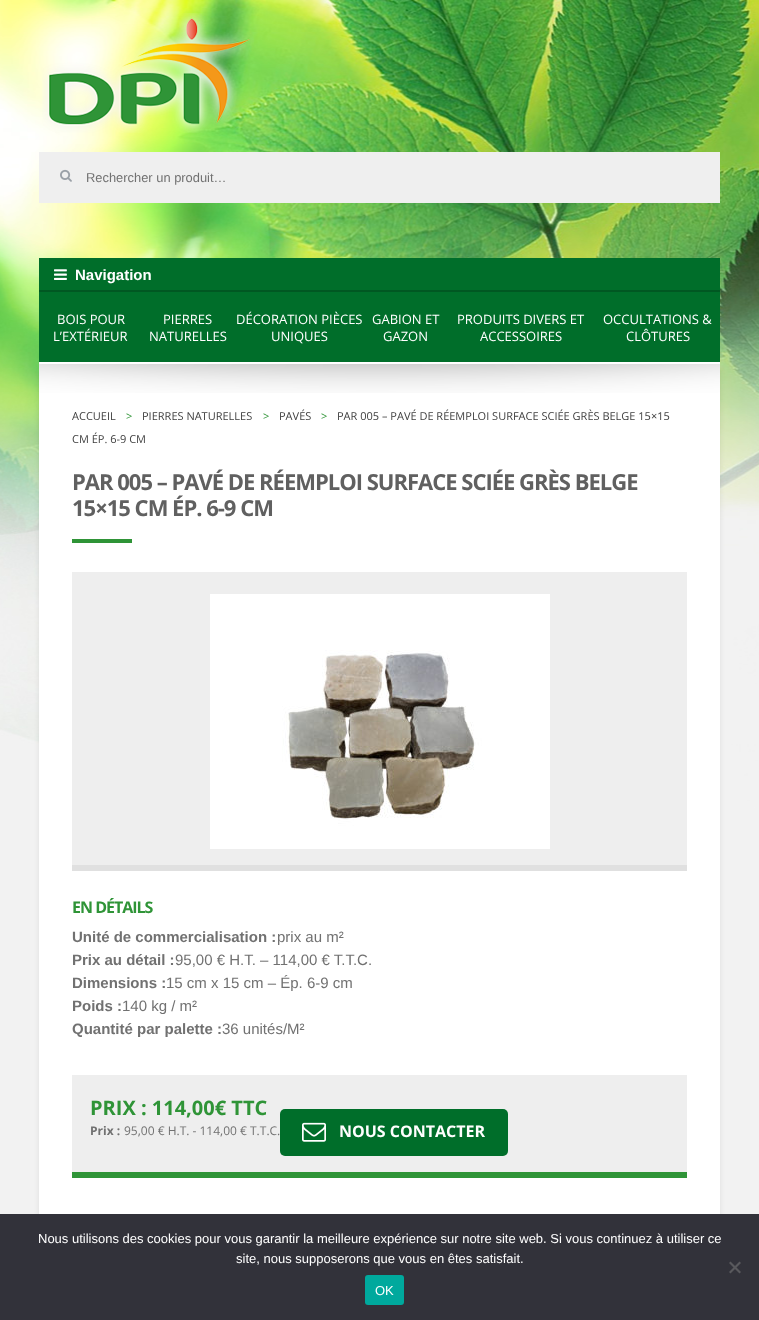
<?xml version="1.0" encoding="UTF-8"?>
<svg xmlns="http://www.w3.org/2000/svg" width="759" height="1320">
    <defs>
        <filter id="blur1" x="-50%" y="-200%" width="200%" height="500%"><feGaussianBlur stdDeviation="2.5"/></filter>
    </defs>
    <rect width="100%" height="100%" fill="#F2F2F2"/>
    <image x="0" y="0" width="759" height="810" href="img_01.png"/>
    <image x="42" y="13" width="212" height="120" href="img_02.png"/>
    <rect x="39" y="152" width="681" height="51" fill="#EFEFEF"/>
    <image x="60" y="169" width="12" height="13" href="img_03.png"/>
    <text x="86" y="182" font-family="Liberation Sans" font-size="12.9" fill="#717171">Rechercher un produit…</text>
    <rect x="39" y="258" width="681" height="32" fill="#006E2A"/>
    <rect x="39" y="290" width="681" height="2" fill="#005822"/>
    <image x="54" y="269" width="13" height="11" href="img_04.png"/>
    <text x="75" y="280" font-family="Liberation Sans" font-size="15" font-weight="700" fill="#FFFFFF">Navigation</text>
    <rect x="39" y="369" width="681" height="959" fill="#000000" fill-opacity="0.09" filter="url(#blur1)"/>
    <rect x="39" y="292" width="681" height="70" fill="#006E2A"/>
    <text x="57" y="324" font-family="Open Sans" font-size="13" fill="#FFFFFF">BOIS POUR</text>
    <text x="53" y="341" font-family="Open Sans" font-size="13" fill="#FFFFFF">L’EXTÉRIEUR</text>
    <text x="163" y="324" font-family="Open Sans" font-size="13" fill="#FFFFFF">PIERRES</text>
    <text x="149" y="341" font-family="Open Sans" font-size="13" fill="#FFFFFF">NATURELLES</text>
    <text x="236" y="324" font-family="Open Sans" font-size="13" fill="#FFFFFF">DÉCORATION PIÈCES</text>
    <text x="271" y="341" font-family="Open Sans" font-size="13" fill="#FFFFFF">UNIQUES</text>
    <text x="372" y="324" font-family="Open Sans" font-size="13" fill="#FFFFFF">GABION ET</text>
    <text x="383" y="341" font-family="Open Sans" font-size="13" fill="#FFFFFF">GAZON</text>
    <text x="457" y="324" font-family="Open Sans" font-size="13" fill="#FFFFFF">PRODUITS DIVERS ET</text>
    <text x="480" y="341" font-family="Open Sans" font-size="13" fill="#FFFFFF">ACCESSOIRES</text>
    <text x="603" y="324" font-family="Open Sans" font-size="13" fill="#FFFFFF">OCCULTATIONS &amp;</text>
    <text x="626" y="341" font-family="Open Sans" font-size="13" fill="#FFFFFF">CLÔTURES</text>
    <rect x="39" y="362" width="681" height="852" fill="#FFFFFF"/>
    <image x="39" y="364" width="681" height="29" href="img_05.png"/>
    <text x="72" y="420" font-family="Open Sans" font-size="11" fill="#3E3E3E">ACCUEIL</text>
    <text x="126" y="420" font-family="Open Sans" font-size="11" fill="#2F9437">&gt;</text>
    <text x="142" y="420" font-family="Open Sans" font-size="11" fill="#3E3E3E">PIERRES NATURELLES</text>
    <text x="263" y="420" font-family="Open Sans" font-size="11" fill="#2F9437">&gt;</text>
    <text x="279" y="420" font-family="Open Sans" font-size="11" fill="#3E3E3E">PAVÉS</text>
    <text x="321" y="420" font-family="Open Sans" font-size="11" fill="#2F9437">&gt;</text>
    <text x="337" y="420" font-family="Open Sans" font-size="11" fill="#3E3E3E">PAR 005 – PAVÉ DE RÉEMPLOI SURFACE SCIÉE GRÈS BELGE 15×15</text>
    <text x="72" y="443" font-family="Open Sans" font-size="11" fill="#3E3E3E">CM ÉP. 6-9 CM</text>
    <rect x="72" y="539" width="60" height="4" fill="#2F9437"/>
    <text font-family="Open Sans" font-size="22" font-weight="700" letter-spacing="-1" fill="#606060">
        <tspan x="72" y="490">PAR 005 – PAVÉ DE RÉEMPLOI SURFACE SCIÉE GRÈS BELGE</tspan>
        <tspan x="72" y="516">15×15 CM ÉP. 6-9 CM</tspan>
    </text>
    <rect x="72" y="572" width="615" height="293" fill="#EEEEEE"/>
    <rect x="72" y="865" width="615" height="6" fill="#E0E0E0"/>
    <image x="210" y="594" width="340" height="255" href="img_06.png"/>
    <text x="72" y="913" font-family="Open Sans" font-size="16" font-weight="700" letter-spacing="-1" fill="#2F9437">EN DÉTAILS</text>
    <text x="72" y="942" font-family="Liberation Sans" font-size="15" font-weight="700" fill="#717171">Unité de commercialisation :</text>
    <text x="277" y="942" font-family="Liberation Sans" font-size="15" fill="#717171">prix au m²</text>
    <text x="72" y="965" font-family="Liberation Sans" font-size="15" font-weight="700" fill="#717171">Prix au détail :</text>
    <text x="175" y="965" font-family="Liberation Sans" font-size="15" fill="#717171">95,00 € H.T. – 114,00 € T.T.C.</text>
    <text x="72" y="988" font-family="Liberation Sans" font-size="15" font-weight="700" fill="#717171">Dimensions :</text>
    <text x="166" y="988" font-family="Liberation Sans" font-size="15" fill="#717171">15 cm x 15 cm – Ép. 6-9 cm</text>
    <text x="72" y="1011" font-family="Liberation Sans" font-size="15" font-weight="700" fill="#717171">Poids :</text>
    <text x="122" y="1011" font-family="Liberation Sans" font-size="15" fill="#717171">140 kg / m²</text>
    <text x="72" y="1034" font-family="Liberation Sans" font-size="15" font-weight="700" fill="#717171">Quantité par palette :</text>
    <text x="222" y="1034" font-family="Liberation Sans" font-size="15" fill="#717171">36 unités/M²</text>
    <rect x="72" y="1075" width="615" height="97" fill="#EEEEEE"/>
    <rect x="72" y="1172" width="615" height="6" fill="#2F9437"/>
    <text x="90" y="1115" font-family="Open Sans" font-size="20" font-weight="700" fill="#2F9437">PRIX : 114,00€ TTC</text>
    <text x="90" y="1135" font-family="Open Sans" font-size="12" font-weight="700" fill="#717171">Prix :</text>
    <text x="124" y="1135" font-family="Open Sans" font-size="12" fill="#717171">95,00 € H.T. - 114,00 € T.T.C.</text>
    <rect x="280" y="1109" width="228" height="47" rx="5" fill="#006E2A"/>
    <image x="302" y="1122" width="24" height="20" href="img_07.png"/>
    <text x="339" y="1137" font-family="Open Sans" font-size="16" font-weight="700" fill="#FFFFFF">NOUS CONTACTER</text>
    <rect x="0" y="1214" width="759" height="106" fill="#32323A"/>
    <text x="38" y="1243" font-family="Liberation Sans" font-size="13" fill="#FFFFFF">Nous utilisons des cookies pour vous garantir la meilleure expérience sur notre site web. Si vous continuez à utiliser ce</text>
    <text x="236" y="1263" font-family="Liberation Sans" font-size="13" fill="#FFFFFF">site, nous supposerons que vous en êtes satisfait.</text>
    <path d="M 739.5 1261.5 L 741 1263 L 730.5 1273.5 L 729 1272 Z" fill="#59595D"/>
    <path d="M 729 1263 L 730.5 1261.5 L 741 1272 L 739.5 1273.5 Z" fill="#59595D"/>
    <rect x="365" y="1275" width="39" height="30" rx="3" fill="#00A99D"/>
    <text x="375" y="1295" font-family="Liberation Sans" font-size="13" fill="#FFFFFF">OK</text>
</svg>
